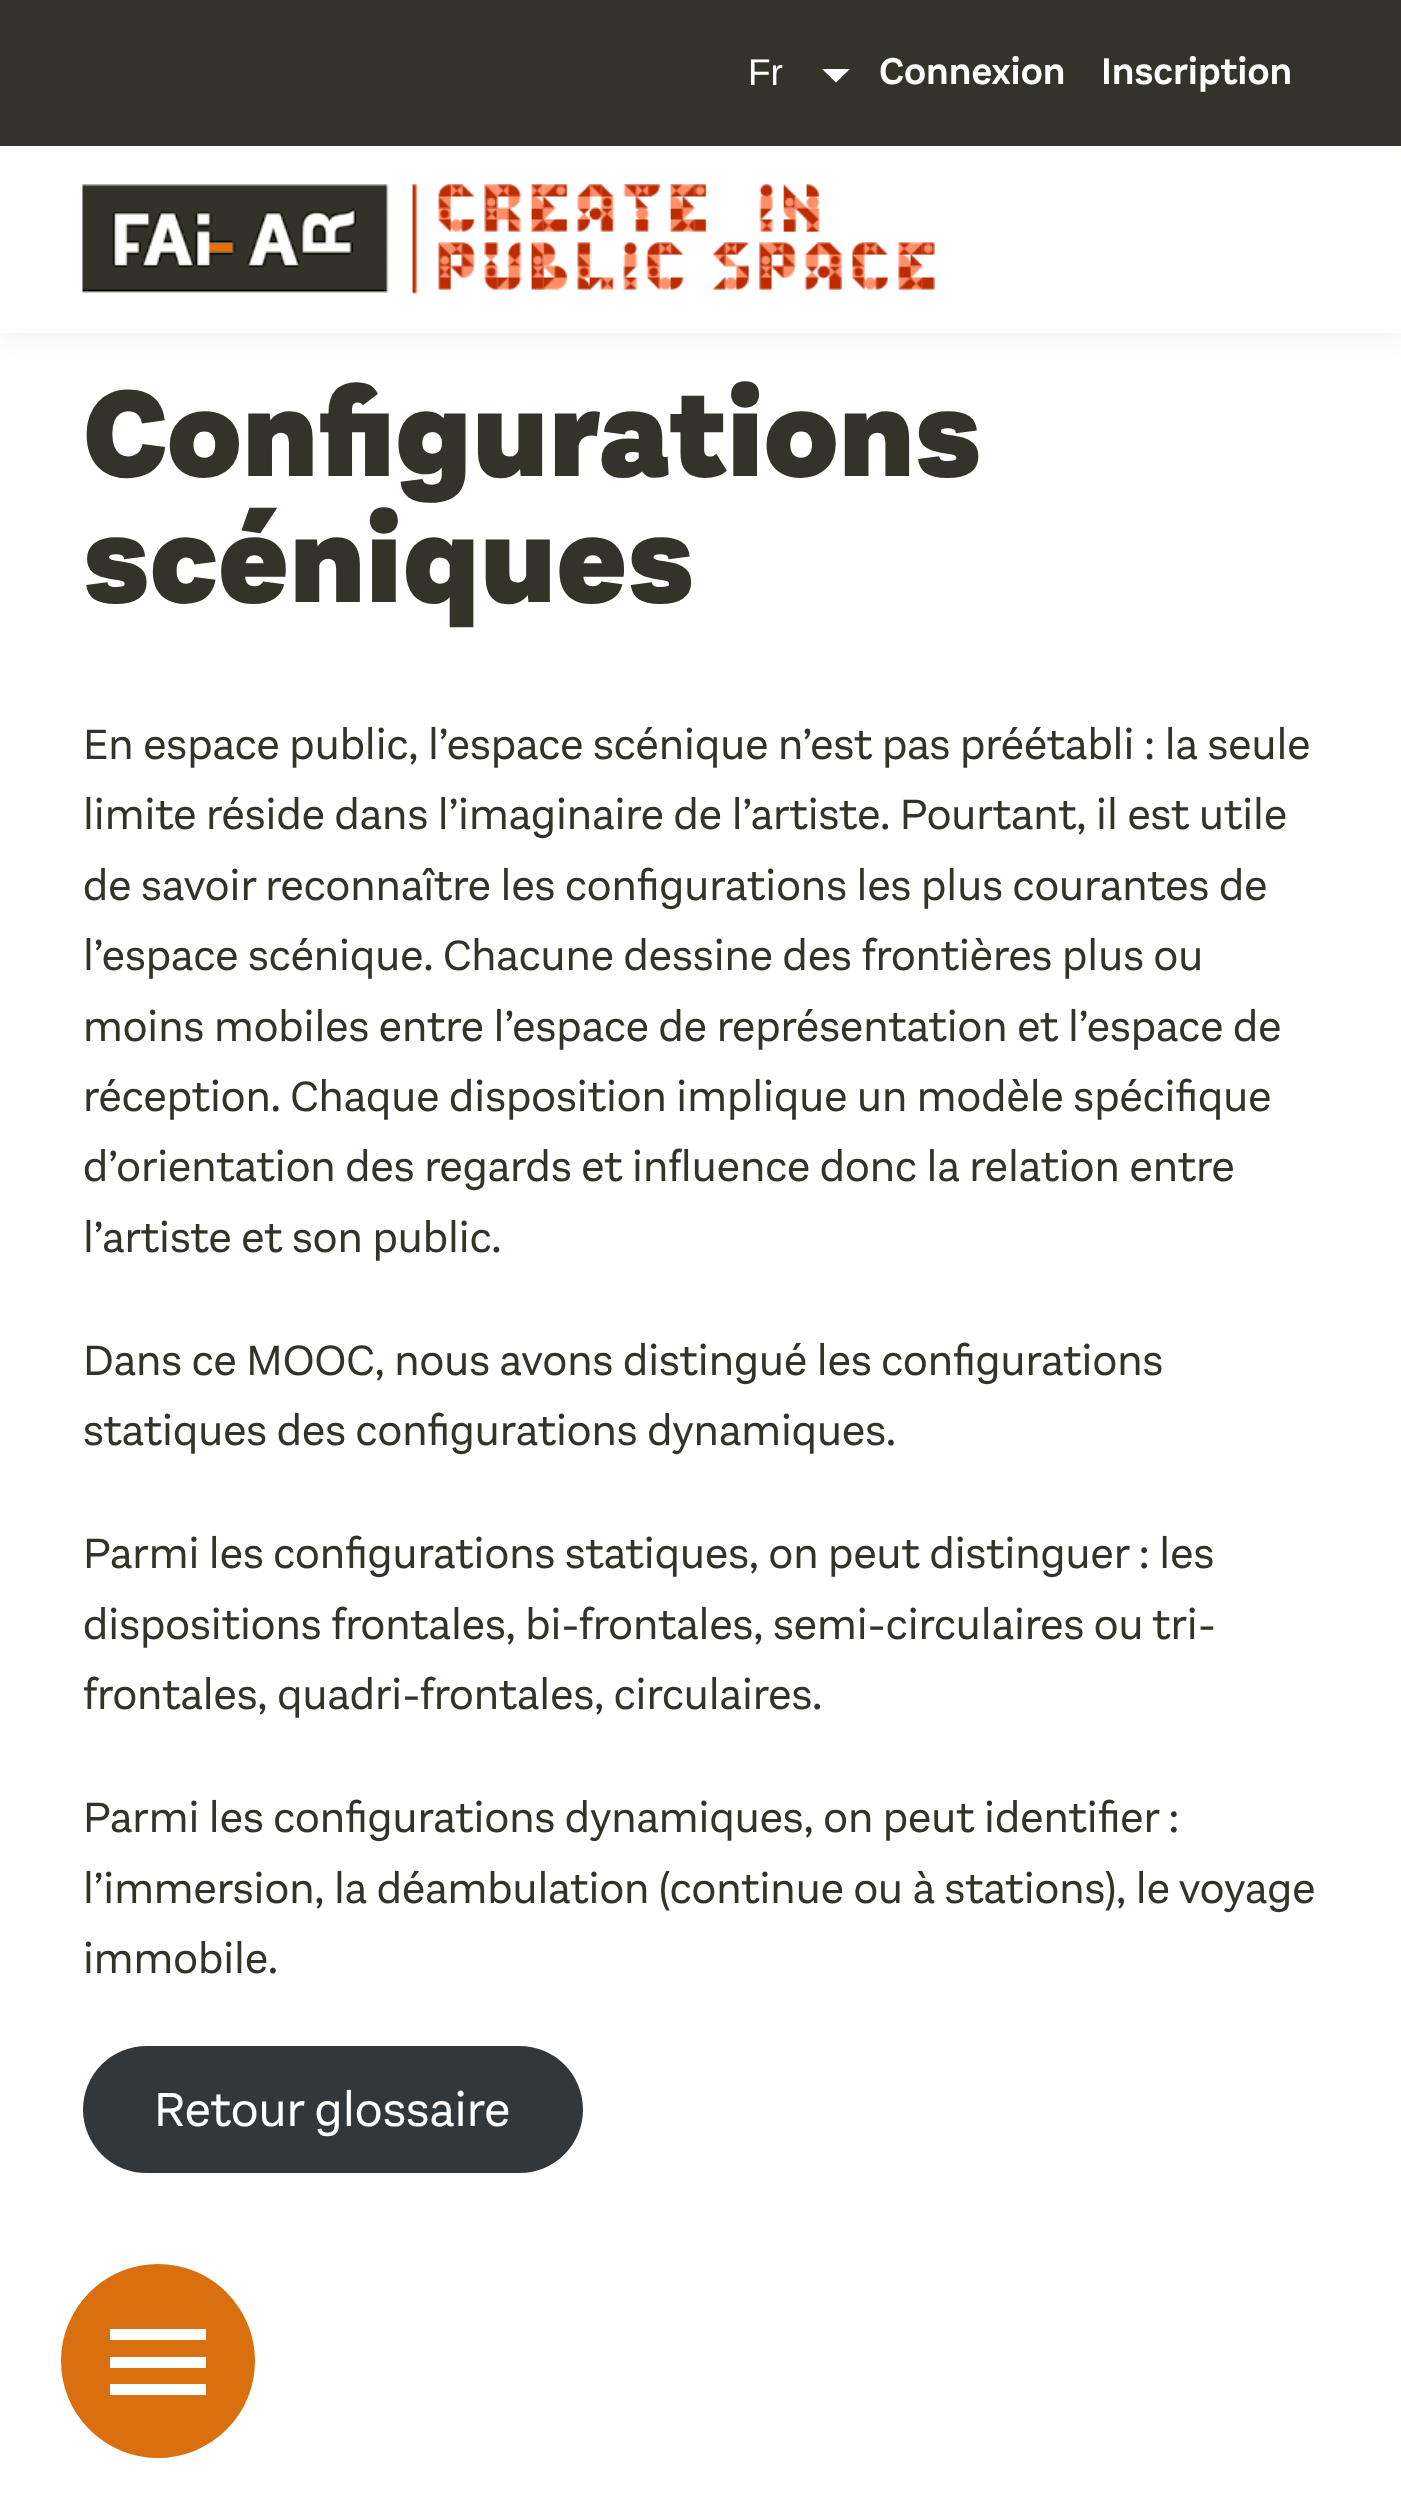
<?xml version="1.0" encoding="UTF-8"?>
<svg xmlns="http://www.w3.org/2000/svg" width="1401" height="2517">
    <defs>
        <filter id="blur1" x="-50%" y="-200%" width="200%" height="500%"><feGaussianBlur stdDeviation="14"/></filter>
    </defs>
    <rect width="100%" height="100%" fill="#FFFFFF"/>
    <rect x="0" y="0" width="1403" height="333" fill="#000000" fill-opacity="0.08" filter="url(#blur1)"/>
    <rect x="0" y="146" width="1401" height="187" fill="#FFFFFF"/>
    <rect x="0" y="0" width="1401" height="146" fill="#333329"/>
    <text x="748" y="85" font-family="Liberation Sans" font-size="37" fill="#FFFFFF">Fr</text>
    <path d="M 822 69 H 850 L 836 82.5 Z" fill="#FFFFFF"/>
    <text x="879" y="84" font-family="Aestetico" font-size="38.5" font-weight="600" fill="#FFFFFF">Connexion</text>
    <text x="1101" y="84" font-family="Aestetico" font-size="38.5" font-weight="600" fill="#FFFFFF">Inscription</text>
    <image x="82" y="184" width="853" height="111" href="img_01.png"/>
    <text font-family="Aestetico" font-size="126.5" font-weight="900" fill="#333329">
        <tspan x="83" y="476">Configurations</tspan>
        <tspan x="83" y="602">scéniques</tspan>
    </text>
    <text font-family="Aestetico" font-size="44" fill="#333329">
        <tspan x="83" y="759">En espace public, l’espace scénique n’est pas préétabli : la seule</tspan>
        <tspan x="83" y="829">limite réside dans l’imaginaire de l’artiste. Pourtant, il est utile</tspan>
        <tspan x="83" y="900">de savoir reconnaître les configurations les plus courantes de</tspan>
        <tspan x="83" y="970">l’espace scénique. Chacune dessine des frontières plus ou</tspan>
        <tspan x="83" y="1041">moins mobiles entre l’espace de représentation et l’espace de</tspan>
        <tspan x="83" y="1111">réception. Chaque disposition implique un modèle spécifique</tspan>
        <tspan x="83" y="1181">d’orientation des regards et influence donc la relation entre</tspan>
        <tspan x="83" y="1252">l’artiste et son public.</tspan>
    </text>
    <text font-family="Aestetico" font-size="44" fill="#333329">
        <tspan x="83" y="1375">Dans ce MOOC, nous avons distingué les configurations</tspan>
        <tspan x="83" y="1445">statiques des configurations dynamiques.</tspan>
    </text>
    <text font-family="Aestetico" font-size="44" fill="#333329">
        <tspan x="83" y="1568">Parmi les configurations statiques, on peut distinguer : les</tspan>
        <tspan x="83" y="1639">dispositions frontales, bi-frontales, semi-circulaires ou tri-</tspan>
        <tspan x="83" y="1709">frontales, quadri-frontales, circulaires.</tspan>
    </text>
    <text font-family="Aestetico" font-size="44" fill="#333329">
        <tspan x="83" y="1832">Parmi les configurations dynamiques, on peut identifier :</tspan>
        <tspan x="83" y="1903">l’immersion, la déambulation (continue ou à stations), le voyage</tspan>
        <tspan x="83" y="1973">immobile.</tspan>
    </text>
    <rect x="83" y="2046" width="500" height="127" rx="63.5" fill="#32373C"/>
    <text x="154" y="2126" font-family="Aestetico" font-size="49.5" fill="#FFFFFF">Retour glossaire</text>
    <circle cx="158" cy="2361" r="100" fill="#DA6F10" stroke="#FFFFFF" stroke-width="6"/>
    <rect x="110" y="2357" width="96" height="11" fill="#FFFFFF"/>
    <rect x="110" y="2329" width="96" height="11" fill="#FFFFFF"/>
    <rect x="110" y="2384" width="96" height="11" fill="#FFFFFF"/>
</svg>
